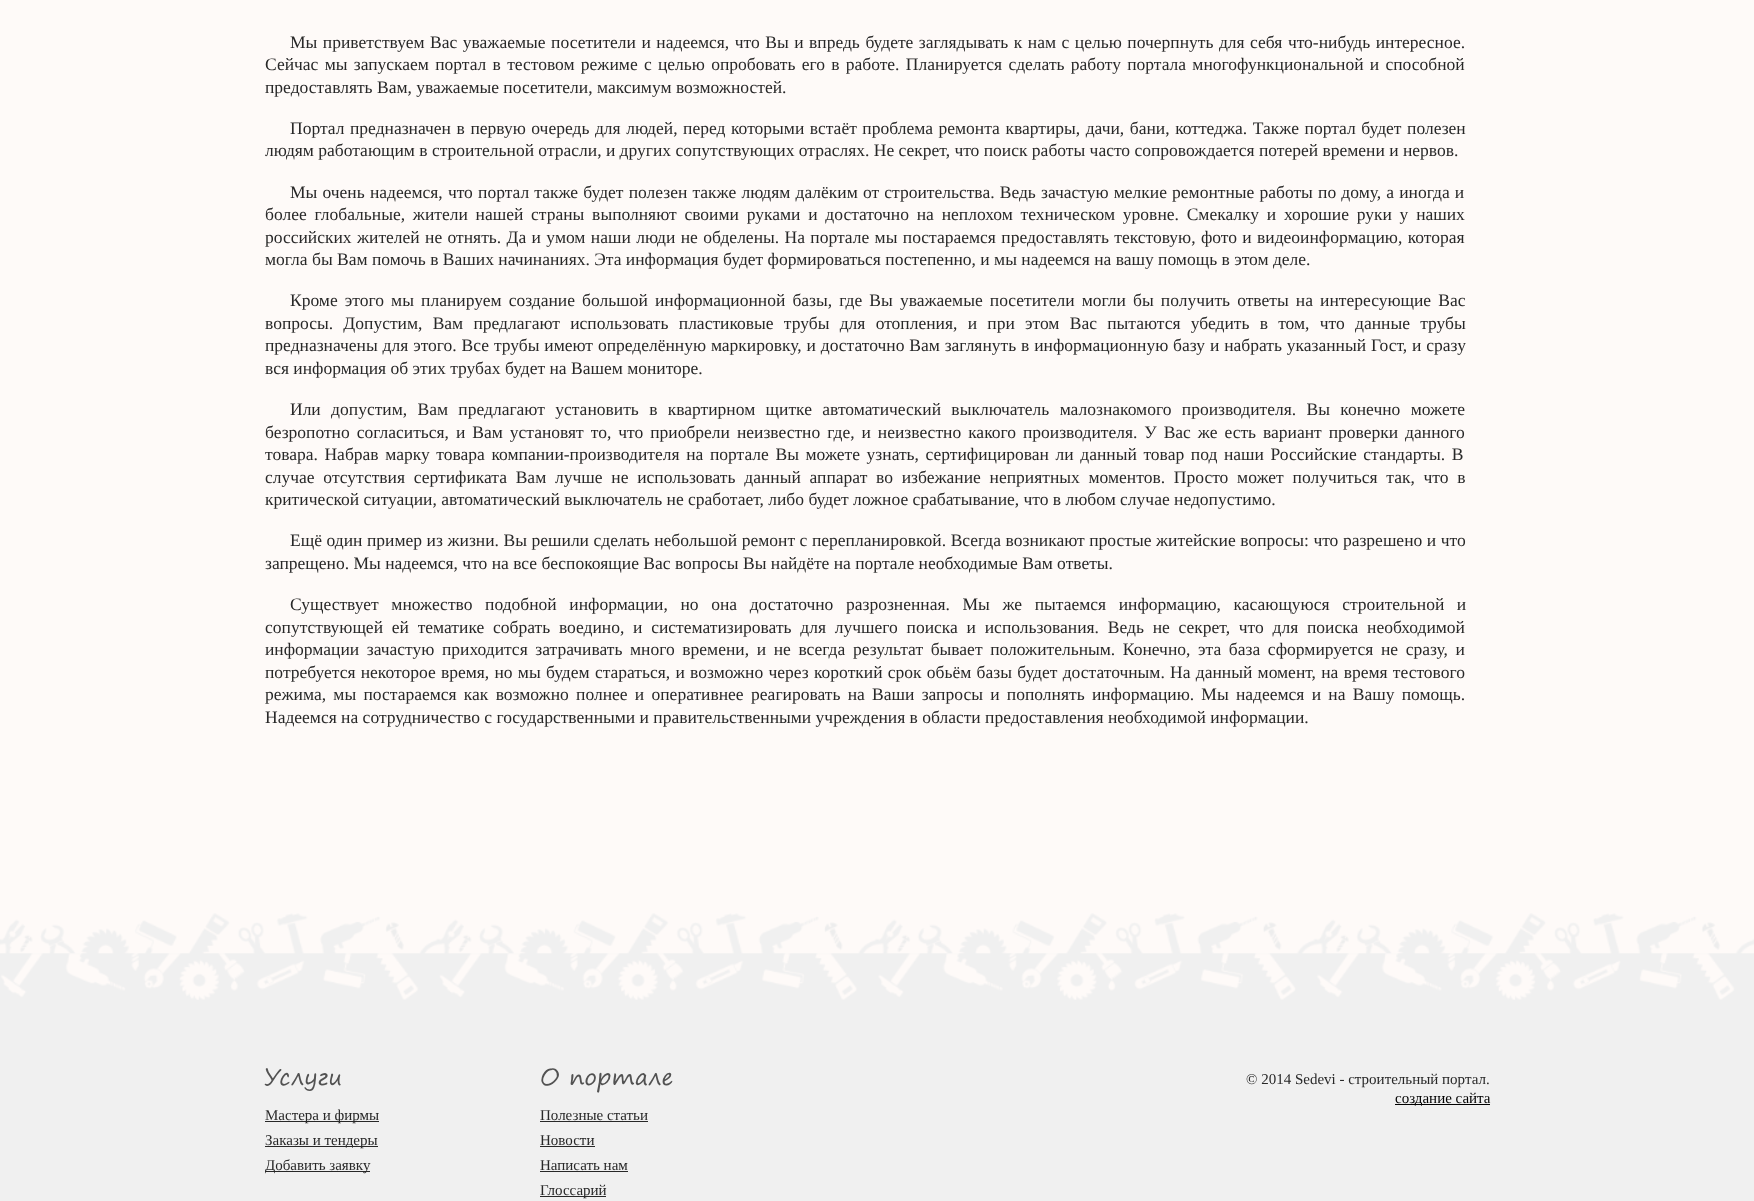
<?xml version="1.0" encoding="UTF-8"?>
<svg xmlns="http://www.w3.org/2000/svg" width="1754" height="1201">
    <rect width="100%" height="100%" fill="#FEFAF8"/>
    <text x="290" y="48" word-spacing="1.15" font-family="Liberation Serif" font-size="17.5" fill="#282828">Мы приветствуем Вас уважаемые посетители и надеемся, что Вы и впредь будете заглядывать к нам с целью почерпнуть для себя что-нибудь интересное.</text>
    <text font-family="Liberation Serif" font-size="17.5" fill="#282828">
        <tspan x="265" y="70" word-spacing="1.9">Сейчас мы запускаем портал в тестовом режиме с целью опробовать его в работе. Планируется сделать работу портала многофункциональной и способной</tspan>
        <tspan x="265" y="93">предоставлять Вам, уважаемые посетители, максимум возможностей.</tspan>
    </text>
    <text x="290" y="134" word-spacing="1.2" font-family="Liberation Serif" font-size="17.5" fill="#282828">Портал предназначен в первую очередь для людей, перед которыми встаёт проблема ремонта квартиры, дачи, бани, коттеджа. Также портал будет полезен</text>
    <text x="265" y="156" font-family="Liberation Serif" font-size="17.5" fill="#282828">людям работающим в строительной отрасли, и других сопутствующих отраслях. Не секрет, что поиск работы часто сопровождается потерей времени и нервов.</text>
    <text x="290" y="198" word-spacing="0.8" font-family="Liberation Serif" font-size="17.5" fill="#282828">Мы очень надеемся, что портал также будет полезен также людям далёким от строительства. Ведь зачастую мелкие ремонтные работы по дому, а иногда и</text>
    <text font-family="Liberation Serif" font-size="17.5" fill="#282828">
        <tspan x="265" y="220" word-spacing="3.4">более глобальные, жители нашей страны выполняют своими руками и достаточно на неплохом техническом уровне. Смекалку и хорошие руки у наших</tspan>
        <tspan x="265" y="243" word-spacing="1">российских жителей не отнять. Да и умом наши люди не обделены. На портале мы постараемся предоставлять текстовую, фото и видеоинформацию, которая</tspan>
        <tspan x="265" y="265">могла бы Вам помочь в Ваших начинаниях. Эта информация будет формироваться постепенно, и мы надеемся на вашу помощь в этом деле.</tspan>
    </text>
    <text x="290" y="306" word-spacing="2.75" font-family="Liberation Serif" font-size="17.5" fill="#282828">Кроме этого мы планируем создание большой информационной базы, где Вы уважаемые посетители могли бы получить ответы на интересующие Вас</text>
    <text font-family="Liberation Serif" font-size="17.5" fill="#282828">
        <tspan x="265" y="329" word-spacing="5.9">вопросы. Допустим, Вам предлагают использовать пластиковые трубы для отопления, и при этом Вас пытаются убедить в том, что данные трубы</tspan>
        <tspan x="265" y="351" word-spacing="0.5">предназначены для этого. Все трубы имеют определённую маркировку, и достаточно Вам заглянуть в информационную базу и набрать указанный Гост, и сразу</tspan>
        <tspan x="265" y="374">вся информация об этих трубах будет на Вашем мониторе.</tspan>
    </text>
    <text x="290" y="415" word-spacing="6" font-family="Liberation Serif" font-size="17.5" fill="#282828">Или допустим, Вам предлагают установить в квартирном щитке автоматический выключатель малознакомого производителя. Вы конечно можете</text>
    <text font-family="Liberation Serif" font-size="17.5" fill="#282828">
        <tspan x="265" y="438" word-spacing="2.6">безропотно согласиться, и Вам установят то, что приобрели неизвестно где, и неизвестно какого производителя. У Вас же есть вариант проверки данного</tspan>
        <tspan x="265" y="460" word-spacing="2.25">товара. Набрав марку товара компании-производителя на портале Вы можете узнать, сертифицирован ли данный товар под наши Российские стандарты. В</tspan>
        <tspan x="265" y="483" word-spacing="4.4">случае отсутствия сертификата Вам лучше не использовать данный аппарат во избежание неприятных моментов. Просто может получиться так, что в</tspan>
        <tspan x="265" y="505">критической ситуации, автоматический выключатель не сработает, либо будет ложное срабатывание, что в любом случае недопустимо.</tspan>
    </text>
    <text x="290" y="546" word-spacing="0.2" font-family="Liberation Serif" font-size="17.5" fill="#282828">Ещё один пример из жизни. Вы решили сделать небольшой ремонт с перепланировкой. Всегда возникают простые житейские вопросы: что разрешено и что</text>
    <text x="265" y="569" font-family="Liberation Serif" font-size="17.5" fill="#282828">запрещено. Мы надеемся, что на все беспокоящие Вас вопросы Вы найдёте на портале необходимые Вам ответы.</text>
    <text x="290" y="610" word-spacing="8.25" font-family="Liberation Serif" font-size="17.5" fill="#282828">Существует множество подобной информации, но она достаточно разрозненная. Мы же пытаемся информацию, касающуюся строительной и</text>
    <text font-family="Liberation Serif" font-size="17.5" fill="#282828">
        <tspan x="265" y="633" word-spacing="4.4">сопутствующей ей тематике собрать воедино, и систематизировать для лучшего поиска и использования. Ведь не секрет, что для поиска необходимой</tspan>
        <tspan x="265" y="655" word-spacing="3.25">информации зачастую приходится затрачивать много времени, и не всегда результат бывает положительным. Конечно, эта база сформируется не сразу, и</tspan>
        <tspan x="265" y="678" word-spacing="0.9">потребуется некоторое время, но мы будем стараться, и возможно через короткий срок обьём базы будет достаточным. На данный момент, на время тестового</tspan>
        <tspan x="265" y="700" word-spacing="2.9">режима, мы постараемся как возможно полнее и оперативнее реагировать на Ваши запросы и пополнять информацию. Мы надеемся и на Вашу помощь.</tspan>
        <tspan x="265" y="723">Надеемся на сотрудничество с государственными и правительственными учреждения в области предоставления необходимой информации.</tspan>
    </text>
    <rect x="0" y="1000" width="1754" height="201" fill="#F0F0F0"/>
    <image x="0" y="913" width="1754" height="87" href="img_01.png"/>
    <text x="265" y="1085" font-family="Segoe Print" font-size="22.5" fill="#525252">Услуги</text>
    <rect x="265" y="1121" width="114" height="1" fill="#282828"/>
    <text x="265" y="1120" font-family="Liberation Serif" font-size="15" fill="#282828">Мастера и фирмы</text>
    <rect x="265" y="1146" width="113" height="1" fill="#282828"/>
    <text x="265" y="1145" font-family="Liberation Serif" font-size="15" fill="#282828">Заказы и тендеры</text>
    <rect x="265" y="1171" width="105" height="1" fill="#282828"/>
    <text x="265" y="1170" font-family="Liberation Serif" font-size="15" fill="#282828">Добавить заявку</text>
    <text x="540" y="1085" font-family="Segoe Print" font-size="22.5" fill="#525252">О портале</text>
    <text x="540" y="1120" font-family="Liberation Serif" font-size="15" fill="#282828">Полезные статьи</text>
    <rect x="540" y="1121" width="108" height="1" fill="#282828"/>
    <text x="540" y="1145" font-family="Liberation Serif" font-size="15" fill="#282828">Новости</text>
    <rect x="540" y="1146" width="55" height="1" fill="#282828"/>
    <text x="540" y="1170" font-family="Liberation Serif" font-size="15" fill="#282828">Написать нам</text>
    <rect x="540" y="1171" width="88" height="1" fill="#282828"/>
    <rect x="540" y="1196" width="66" height="1" fill="#282828"/>
    <text x="540" y="1195" font-family="Liberation Serif" font-size="15" fill="#282828">Глоссарий</text>
    <text x="1246" y="1084" font-family="Liberation Serif" font-size="15" fill="#282828">© 2014 Sedevi - строительный портал.</text>
    <rect x="1395" y="1104" width="95" height="1" fill="#000000"/>
    <text x="1395" y="1103" font-family="Liberation Serif" font-size="15" fill="#000000">создание сайта</text>
</svg>
